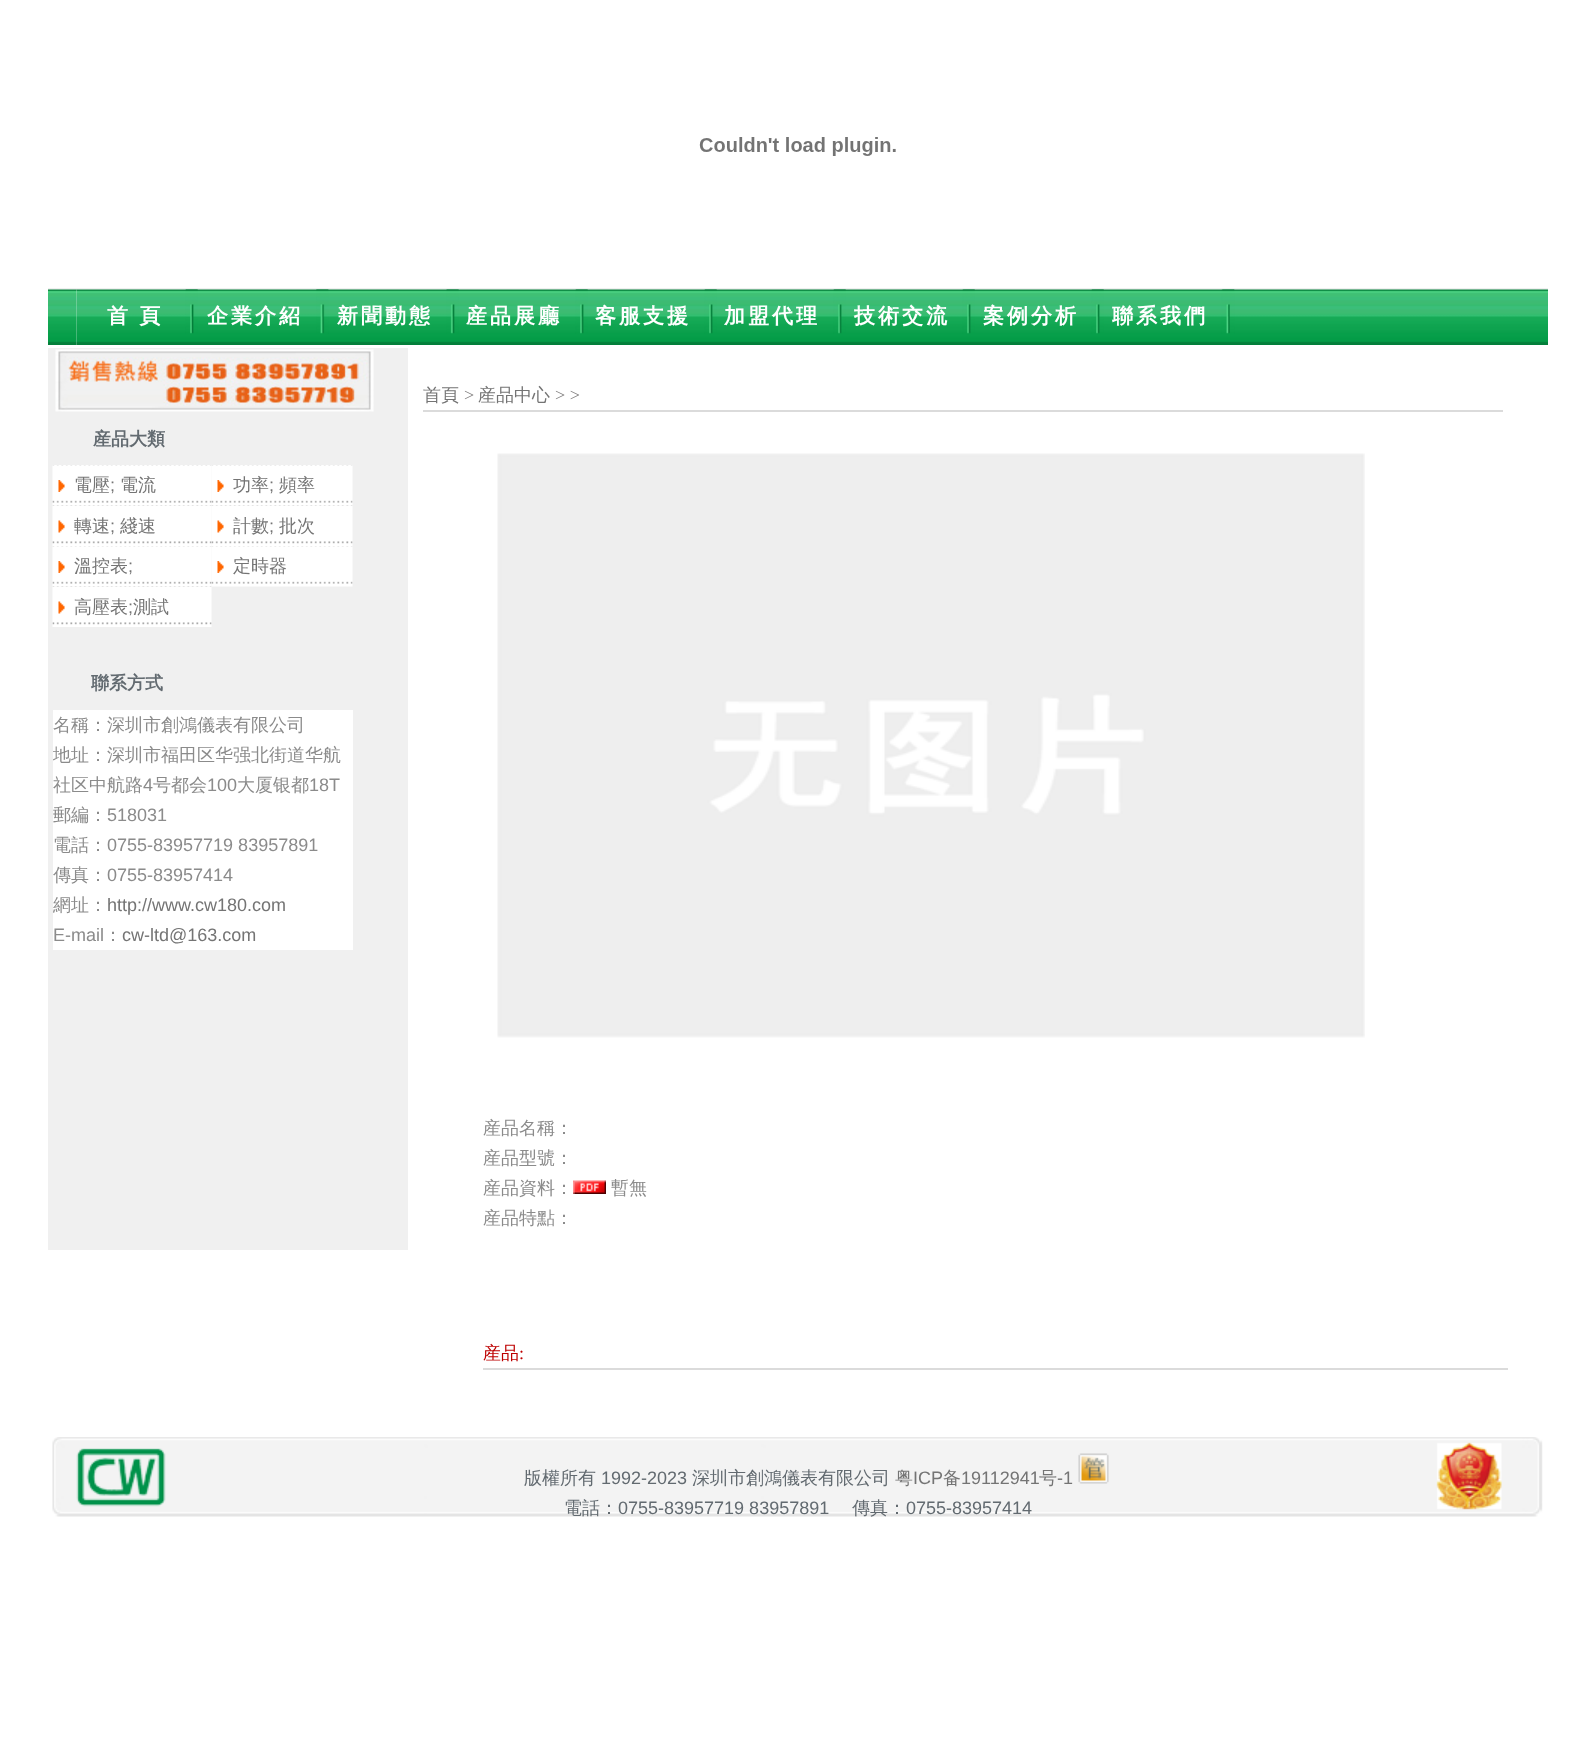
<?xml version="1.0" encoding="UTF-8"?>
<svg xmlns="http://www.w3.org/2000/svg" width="1595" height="1738">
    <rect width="100%" height="100%" fill="#FFFFFF"/>
    <image x="699" y="137" width="197" height="19" href="img_01.png"/>
    <rect x="48" y="288" width="1500" height="2" fill="#F0F0F0"/>
    <image x="48" y="289" width="29" height="56" href="img_02.png"/>
    <image x="76" y="289" width="1472" height="56" href="img_03.png"/>
    <image x="185" y="289" width="13" height="45" href="img_04.png"/>
    <text x="107" y="323" word-spacing="-1" font-family="WenQuanYi Zen Hei" font-size="21" font-weight="700" letter-spacing="3" fill="#FFFFFF">首 頁</text>
    <image x="316" y="289" width="13" height="45" href="img_05.png"/>
    <text x="207" y="323" font-family="WenQuanYi Zen Hei" font-size="21" font-weight="700" letter-spacing="3" fill="#FFFFFF">企業介紹</text>
    <image x="446" y="289" width="13" height="45" href="img_06.png"/>
    <text x="337" y="323" font-family="WenQuanYi Zen Hei" font-size="21" font-weight="700" letter-spacing="3" fill="#FFFFFF">新聞動態</text>
    <image x="575" y="289" width="13" height="45" href="img_07.png"/>
    <text x="466" y="323" font-family="WenQuanYi Zen Hei" font-size="21" font-weight="700" letter-spacing="3" fill="#FFFFFF">産品展廳</text>
    <image x="704" y="289" width="13" height="45" href="img_07.png"/>
    <text x="595" y="323" font-family="WenQuanYi Zen Hei" font-size="21" font-weight="700" letter-spacing="3" fill="#FFFFFF">客服支援</text>
    <image x="833" y="289" width="13" height="45" href="img_08.png"/>
    <text x="724" y="323" font-family="WenQuanYi Zen Hei" font-size="21" font-weight="700" letter-spacing="3" fill="#FFFFFF">加盟代理</text>
    <image x="962" y="289" width="13" height="45" href="img_07.png"/>
    <text x="854" y="323" font-family="WenQuanYi Zen Hei" font-size="21" font-weight="700" letter-spacing="3" fill="#FFFFFF">技術交流</text>
    <image x="1091" y="289" width="13" height="45" href="img_07.png"/>
    <text x="983" y="323" font-family="WenQuanYi Zen Hei" font-size="21" font-weight="700" letter-spacing="3" fill="#FFFFFF">案例分析</text>
    <image x="1221" y="289" width="14" height="45" href="img_09.png"/>
    <text x="1112" y="323" font-family="WenQuanYi Zen Hei" font-size="21" font-weight="700" letter-spacing="3" fill="#FFFFFF">聯系我們</text>
    <rect x="48" y="348" width="360" height="902" fill="#F0F0F0"/>
    <image x="55" y="349" width="319" height="63" href="img_10.png"/>
    <text x="93" y="445" font-family="WenQuanYi Zen Hei" font-size="18" font-weight="700" fill="#626A70">産品大類</text>
    <image x="52" y="465" width="160" height="41" href="img_11.png"/>
    <image x="58" y="480" width="7" height="12" href="img_12.png"/>
    <text x="74" y="491" font-family="WenQuanYi Zen Hei" font-size="18" font-weight="500" fill="#747474">電壓</text>
    <text x="110" y="491" font-family="Liberation Sans" font-size="18" fill="#747474">;</text>
    <text x="120" y="491" font-family="WenQuanYi Zen Hei" font-size="18" font-weight="500" fill="#747474">電流</text>
    <image x="211" y="465" width="142" height="41" href="img_13.png"/>
    <image x="217" y="480" width="7" height="12" href="img_12.png"/>
    <text x="233" y="491" font-family="WenQuanYi Zen Hei" font-size="18" font-weight="500" fill="#747474">功率</text>
    <text x="269" y="491" font-family="Liberation Sans" font-size="18" fill="#747474">;</text>
    <text x="279" y="491" font-family="WenQuanYi Zen Hei" font-size="18" font-weight="500" fill="#747474">頻率</text>
    <image x="52" y="505" width="160" height="41" href="img_14.png"/>
    <image x="58" y="520" width="7" height="13" href="img_15.png"/>
    <text x="74" y="532" font-family="WenQuanYi Zen Hei" font-size="18" font-weight="500" fill="#747474">轉速</text>
    <text x="110" y="532" font-family="Liberation Sans" font-size="18" fill="#747474">;</text>
    <text x="120" y="532" font-family="WenQuanYi Zen Hei" font-size="18" font-weight="500" fill="#747474">綫速</text>
    <image x="211" y="505" width="142" height="41" href="img_16.png"/>
    <image x="217" y="520" width="7" height="13" href="img_15.png"/>
    <text x="233" y="532" font-family="WenQuanYi Zen Hei" font-size="18" font-weight="500" fill="#747474">計數</text>
    <text x="269" y="532" font-family="Liberation Sans" font-size="18" fill="#747474">;</text>
    <text x="279" y="532" font-family="WenQuanYi Zen Hei" font-size="18" font-weight="500" fill="#747474">批次</text>
    <image x="52" y="546" width="160" height="41" href="img_11.png"/>
    <image x="58" y="561" width="7" height="12" href="img_12.png"/>
    <text x="74" y="572" font-family="WenQuanYi Zen Hei" font-size="18" font-weight="500" fill="#747474">溫控表</text>
    <text x="128" y="572" font-family="Liberation Sans" font-size="18" fill="#747474">;</text>
    <image x="211" y="546" width="142" height="41" href="img_13.png"/>
    <image x="217" y="561" width="7" height="12" href="img_12.png"/>
    <text x="233" y="572" font-family="WenQuanYi Zen Hei" font-size="18" font-weight="500" fill="#747474">定時器</text>
    <image x="52" y="586" width="160" height="41" href="img_14.png"/>
    <image x="58" y="601" width="7" height="13" href="img_15.png"/>
    <text x="74" y="613" font-family="WenQuanYi Zen Hei" font-size="18" font-weight="500" fill="#747474">高壓表</text>
    <text x="128" y="613" font-family="Liberation Sans" font-size="18" fill="#747474">;</text>
    <text x="133" y="613" font-family="WenQuanYi Zen Hei" font-size="18" font-weight="500" fill="#747474">測試</text>
    <text x="91" y="689" font-family="WenQuanYi Zen Hei" font-size="18" font-weight="700" fill="#626A70">聯系方式</text>
    <rect x="53" y="710" width="300" height="240" fill="#FFFFFF"/>
    <text font-family="WenQuanYi Zen Hei" font-size="18" font-weight="500" fill="#8B8B8B">
        <tspan x="53" y="731">名稱：深圳市創鴻儀表有限公司</tspan>
        <tspan x="53" y="761">地址：深圳市福田区华强北街道华航</tspan>
        <tspan x="53" y="791">社区中航路</tspan>
    </text>
    <text x="143" y="791" font-family="Liberation Sans" font-size="18" fill="#8B8B8B">4</text>
    <text x="153" y="791" font-family="WenQuanYi Zen Hei" font-size="18" font-weight="500" fill="#8B8B8B">号都会</text>
    <text x="207" y="791" font-family="Liberation Sans" font-size="18" fill="#8B8B8B">100</text>
    <text x="237" y="791" font-family="WenQuanYi Zen Hei" font-size="18" font-weight="500" fill="#8B8B8B">大厦银都</text>
    <text x="309" y="791" font-family="Liberation Sans" font-size="18" fill="#8B8B8B">18T</text>
    <text x="53" y="821" font-family="WenQuanYi Zen Hei" font-size="18" font-weight="500" fill="#8B8B8B">郵編：</text>
    <text x="107" y="821" font-family="Liberation Sans" font-size="18" fill="#8B8B8B">518031</text>
    <text x="53" y="851" font-family="WenQuanYi Zen Hei" font-size="18" font-weight="500" fill="#8B8B8B">電話：</text>
    <text x="107" y="851" font-family="Liberation Sans" font-size="18" fill="#8B8B8B">0755-83957719 83957891</text>
    <text x="53" y="881" font-family="WenQuanYi Zen Hei" font-size="18" font-weight="500" fill="#8B8B8B">傳真：</text>
    <text x="107" y="881" font-family="Liberation Sans" font-size="18" fill="#8B8B8B">0755-83957414</text>
    <text x="53" y="911" font-family="WenQuanYi Zen Hei" font-size="18" font-weight="500" fill="#8B8B8B">網址：</text>
    <text x="107" y="911" font-family="Liberation Sans" font-size="18" fill="#747474">http://www.cw180.com</text>
    <text x="53" y="941" font-family="Liberation Sans" font-size="18" fill="#8B8B8B">E-mail</text>
    <text x="104" y="941" font-family="WenQuanYi Zen Hei" font-size="18" font-weight="500" fill="#8B8B8B">：</text>
    <text x="122" y="941" font-family="Liberation Sans" font-size="18" fill="#747474">cw-ltd@163.com</text>
    <text x="423" y="401" font-family="WenQuanYi Zen Hei" font-size="18" font-weight="500" fill="#747474">首頁</text>
    <text x="464" y="401" font-family="Liberation Serif" font-size="18" fill="#7E7C7C">&gt;</text>
    <text x="478" y="401" font-family="WenQuanYi Zen Hei" font-size="18" font-weight="500" fill="#747474">産品中心</text>
    <text x="555" y="401" font-family="Liberation Serif" font-size="18" fill="#7E7C7C">&gt; &gt;</text>
    <rect x="423" y="410" width="1080" height="2" fill="#DBDBDB"/>
    <image x="497" y="453" width="868" height="585" href="img_17.png"/>
    <text font-family="WenQuanYi Zen Hei" font-size="18" font-weight="500" fill="#8B8B8B">
        <tspan x="483" y="1134">産品名稱：</tspan>
        <tspan x="483" y="1164">産品型號：</tspan>
        <tspan x="483" y="1194">産品資料：</tspan>
    </text>
    <image x="573" y="1180" width="33" height="14" href="img_18.png"/>
    <text x="611" y="1194" font-family="WenQuanYi Zen Hei" font-size="18" font-weight="500" fill="#8B8B8B">暫無</text>
    <text x="483" y="1224" font-family="WenQuanYi Zen Hei" font-size="18" font-weight="500" fill="#8B8B8B">産品特點：</text>
    <text x="483" y="1359" font-family="WenQuanYi Zen Hei" font-size="18" font-weight="500" fill="#BD0000">産品</text>
    <text x="519" y="1359" font-family="Liberation Serif" font-size="18" fill="#BD0000">:</text>
    <rect x="483" y="1368" width="1025" height="2" fill="#DBDBDB"/>
    <image x="52" y="1437" width="1491" height="80" href="img_19.png"/>
    <text x="524" y="1484" font-family="WenQuanYi Zen Hei" font-size="18" font-weight="500" fill="#626A70">版權所有</text>
    <text x="601" y="1484" font-family="Liberation Sans" font-size="18" fill="#626A70">1992-2023</text>
    <text x="692" y="1484" font-family="WenQuanYi Zen Hei" font-size="18" font-weight="500" fill="#626A70">深圳市創鴻儀表有限公司</text>
    <text x="895" y="1484" font-family="WenQuanYi Zen Hei" font-size="18" font-weight="500" fill="#747474">粤</text>
    <text x="913" y="1484" font-family="Liberation Sans" font-size="18" fill="#747474">ICP</text>
    <text x="943" y="1484" font-family="WenQuanYi Zen Hei" font-size="18" font-weight="500" fill="#747474">备</text>
    <text x="961" y="1484" font-family="Liberation Sans" font-size="18" fill="#747474">19112941</text>
    <text x="1039" y="1484" font-family="WenQuanYi Zen Hei" font-size="18" font-weight="500" fill="#747474">号</text>
    <text x="1057" y="1484" font-family="Liberation Sans" font-size="18" fill="#747474">-1</text>
    <image x="1078" y="1453" width="31" height="31" href="img_20.png"/>
    <text x="564" y="1514" font-family="WenQuanYi Zen Hei" font-size="18" font-weight="500" fill="#626A70">電話：</text>
    <text x="618" y="1514" font-family="Liberation Sans" font-size="18" fill="#626A70">0755-83957719 83957891</text>
    <text x="852" y="1514" font-family="WenQuanYi Zen Hei" font-size="18" font-weight="500" fill="#626A70">傳真：</text>
    <text x="906" y="1514" font-family="Liberation Sans" font-size="18" fill="#626A70">0755-83957414</text>
</svg>
